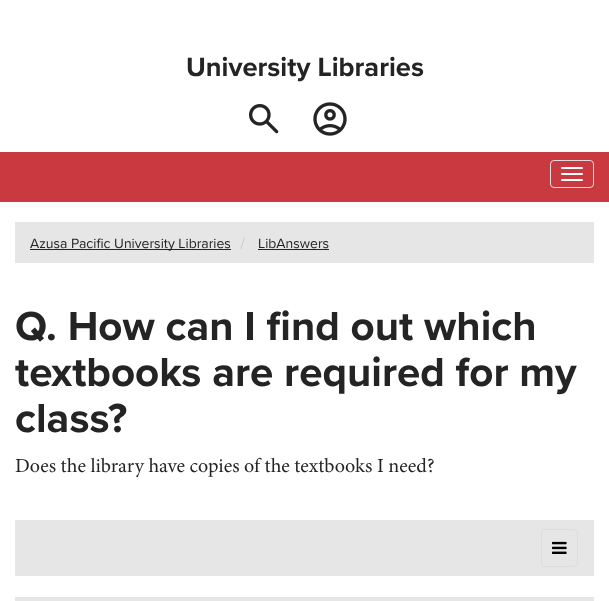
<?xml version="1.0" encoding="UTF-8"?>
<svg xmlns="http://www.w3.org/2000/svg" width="609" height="601">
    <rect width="100%" height="100%" fill="#FFFFFF"/>
    <text x="186" y="76" font-family="Proxima Nova" font-size="27.25" font-weight="700" fill="#252425">University Libraries</text>
    <image x="249" y="104" width="30" height="30" href="img_01.png"/>
    <image x="313" y="102" width="34" height="34" href="img_02.png"/>
    <rect x="0" y="152" width="609" height="50" fill="#CA3940"/>
    <rect x="550.5" y="160.5" width="43" height="27" rx="3.5" fill="none" stroke="#DDDDDD"/>
    <rect x="561" y="167" width="22" height="2" rx="1" fill="#FFFFFF"/>
    <rect x="561" y="173" width="22" height="2" rx="1" fill="#FFFFFF"/>
    <rect x="561" y="179" width="22" height="2" rx="1" fill="#FFFFFF"/>
    <rect x="15" y="222" width="579" height="41" fill="#E6E6E6"/>
    <rect x="30" y="249" width="201" height="1" fill="#252425"/>
    <text x="30" y="248" font-family="Proxima Nova" font-size="14" fill="#252425">Azusa Pacific University Libraries</text>
    <text x="240" y="248" font-family="Minion" font-size="17" fill="#CCCCCC">/</text>
    <text x="258" y="248" font-family="Proxima Nova" font-size="14" fill="#252425">LibAnswers</text>
    <rect x="258" y="249" width="71" height="1" fill="#252425"/>
    <text font-family="Proxima Nova" font-size="42" font-weight="700" fill="#252425">
        <tspan x="15" y="340">Q. How can I find out which</tspan>
        <tspan x="15" y="386">textbooks are required for my</tspan>
        <tspan x="15" y="432">class?</tspan>
    </text>
    <text x="15" y="472" font-family="Minion" font-size="20" fill="#252425">Does the library have copies of the textbooks I need?</text>
    <rect x="15" y="520" width="579" height="56" fill="#E6E6E6"/>
    <rect x="541.5" y="529.5" width="36" height="37" rx="3.5" fill="none" stroke="#DDDDDD"/>
    <image x="552" y="541" width="15" height="13" href="img_03.png"/>
    <rect x="15.5" y="597.5" width="578" height="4" fill="none" stroke="#E6E6E6"/>
    <rect x="16" y="598" width="577" height="3" fill="#E6E6E6"/>
</svg>
